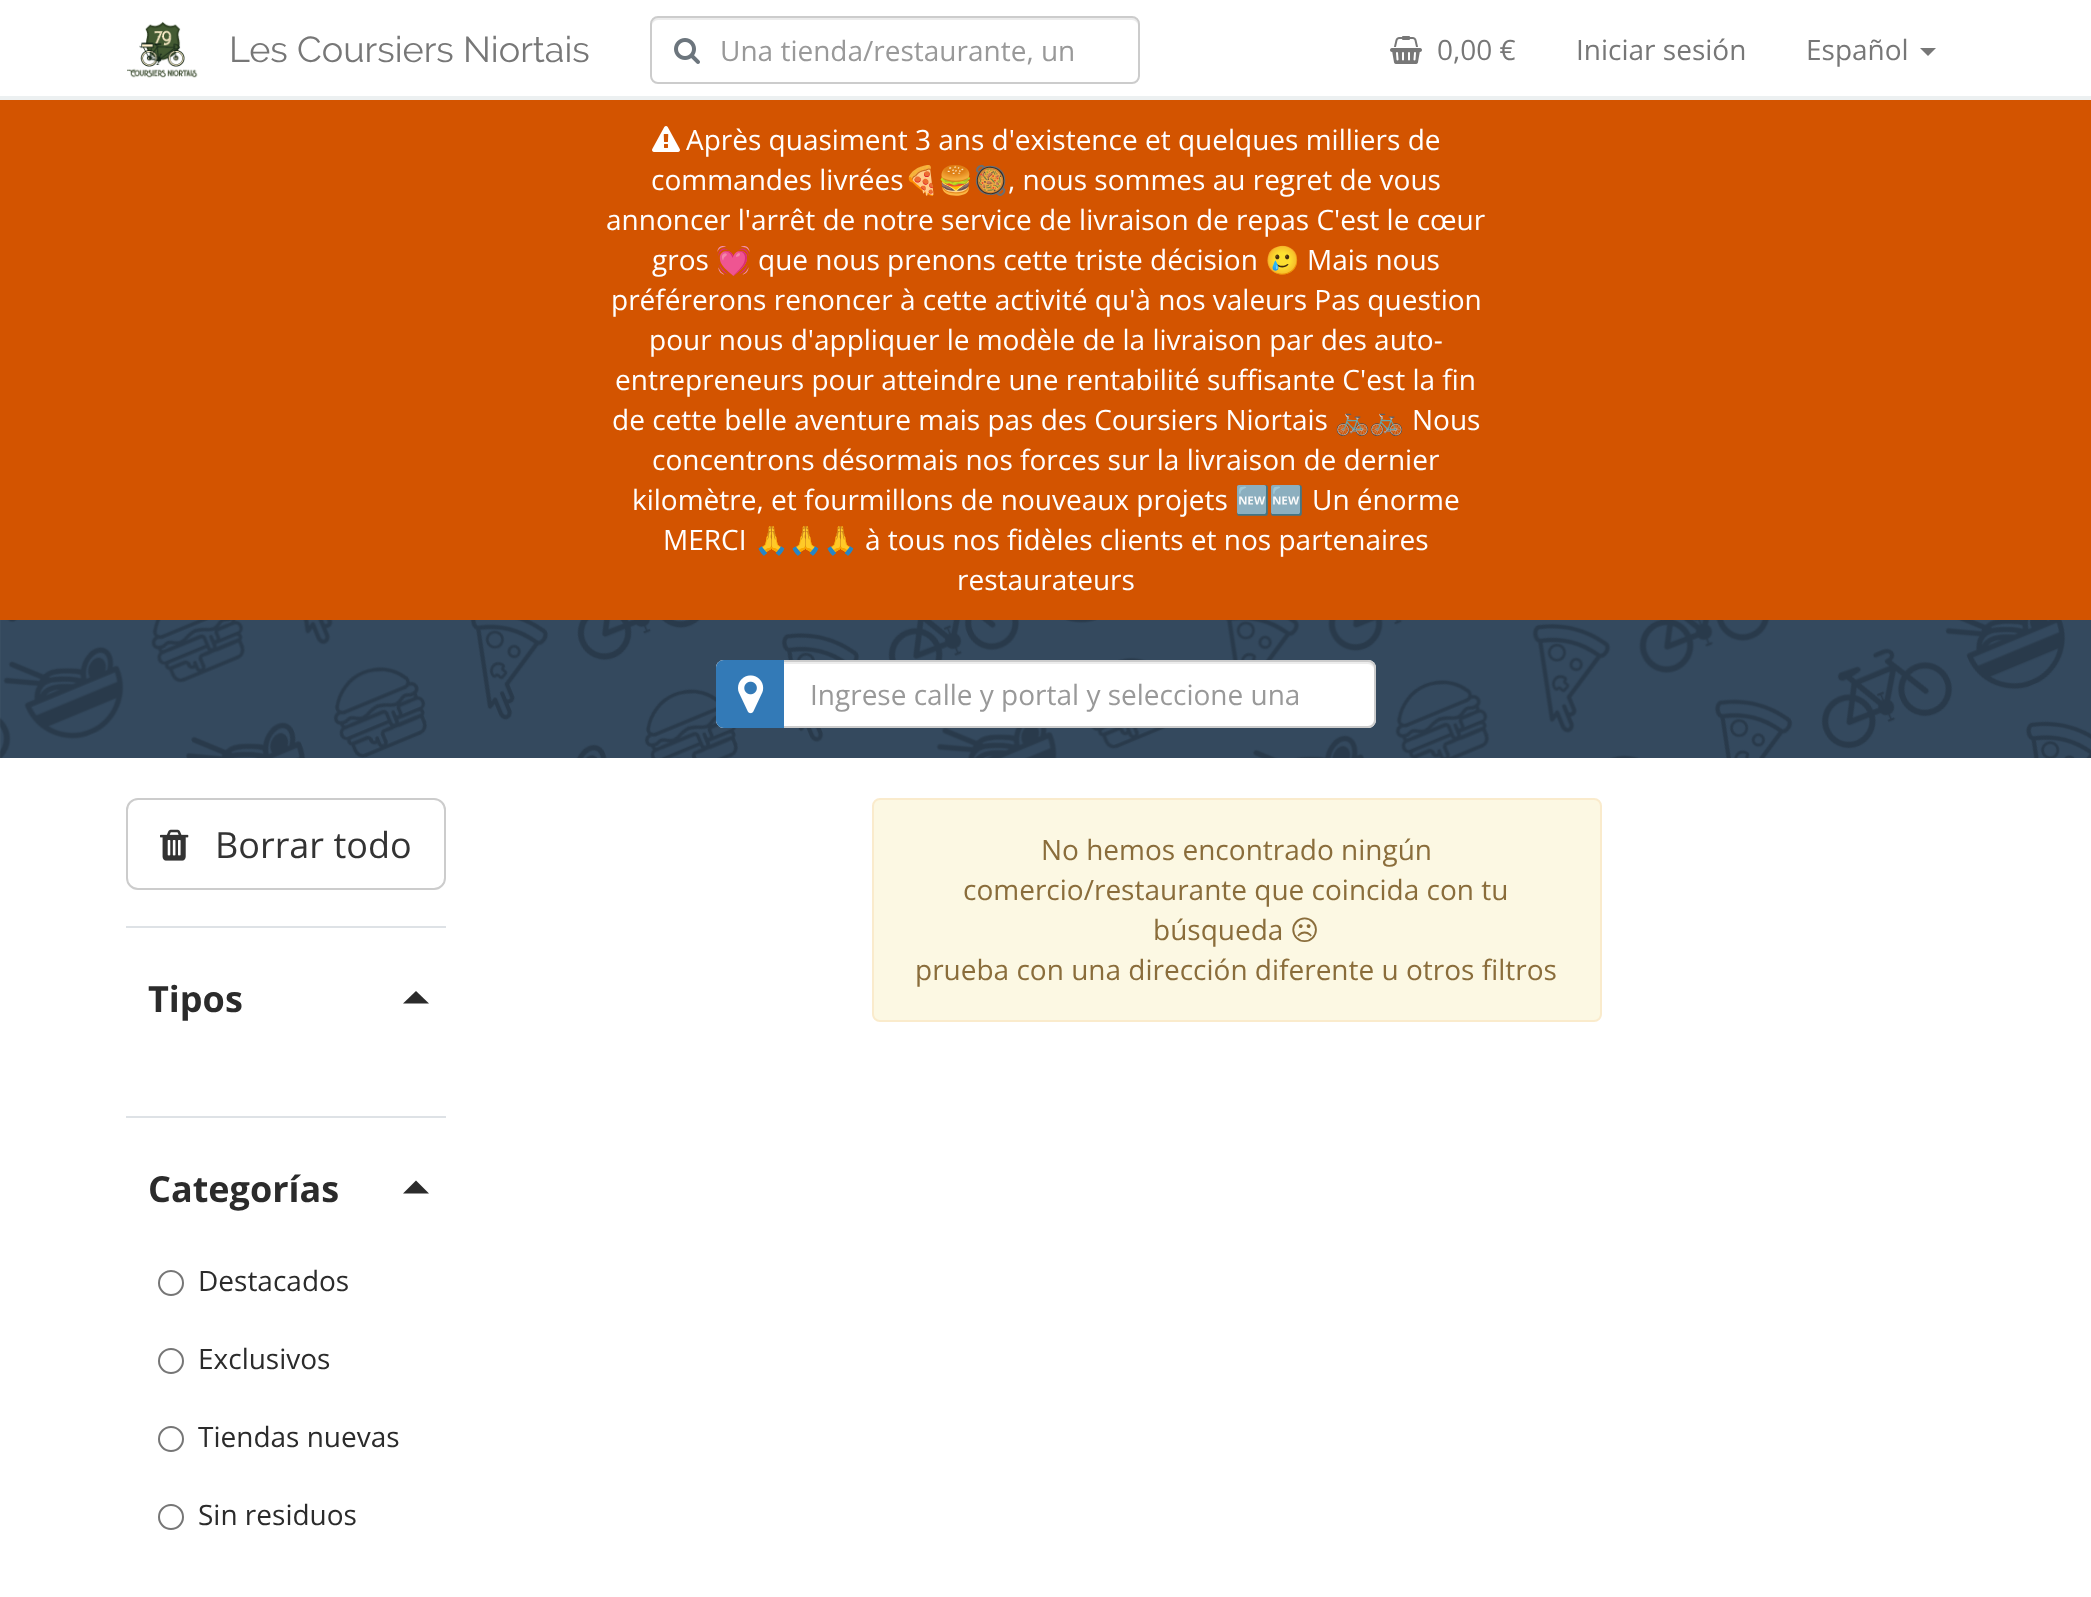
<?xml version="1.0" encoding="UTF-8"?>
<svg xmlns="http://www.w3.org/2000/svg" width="2091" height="1597">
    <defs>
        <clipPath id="clip1"><rect x="742" y="676" width="556" height="38"/></clipPath>
    </defs>
    <rect width="100%" height="100%" fill="#FFFFFF"/>
    <rect x="0" y="96" width="2091" height="4" fill="#ECF0F1"/>
    <image x="127" y="21" width="71" height="57" href="img_01.png"/>
    <text x="229" y="62" font-family="Raleway" font-size="36" fill="#777777">Les Coursiers Niortais</text>
    <path d="M 658 20 H 1132 C 1135 20 1138 23 1138 26 C 1138 22 1137 18 1132 18 H 658 C 653 18 652 22 652 26 C 652 23 655 20 658 20 Z" fill="#ECECEC"/>
    <rect x="651" y="17" width="488" height="66" rx="7" fill="none" stroke="#CCCCCC" stroke-width="2"/>
    <image x="674" y="38" width="26" height="26" href="img_02.png"/>
    <text x="720" y="61" font-family="Open Sans" font-size="28" fill="#999999">Una tienda/restaurante, un</text>
    <image x="1390" y="36" width="32" height="28" href="img_03.png"/>
    <text x="1437" y="60" font-family="Open Sans" font-size="28" fill="#777777">0,00 €</text>
    <text x="1576" y="60" font-family="Open Sans" font-size="28" fill="#777777">Iniciar sesión</text>
    <text x="1806" y="60" font-family="Open Sans" font-size="28" fill="#777777">Español</text>
    <path d="M 1920 48 H 1936 L 1928 56 Z" fill="#777777"/>
    <rect x="0" y="100" width="2091" height="520" fill="#D35400"/>
    <image x="652" y="126" width="28" height="26" href="img_04.png"/>
    <text x="686" y="150" font-family="Open Sans" font-size="28" fill="#FFFFFF">Après quasiment 3 ans d'existence et quelques milliers de</text>
    <text x="651" y="190" font-family="Open Sans" font-size="28" fill="#FFFFFF">commandes livrées</text>
    <text x="904" y="190" font-family="Noto Color Emoji" font-size="28" fill="#FFFFFF">🍕🍔🥘</text>
    <text x="1008" y="190" font-family="Open Sans" font-size="28" fill="#FFFFFF">, nous sommes au regret de vous</text>
    <text x="606" y="230" font-family="Open Sans" font-size="28" fill="#FFFFFF">annoncer l'arrêt de notre service de livraison de repas C'est le cœur</text>
    <text x="652" y="270" font-family="Open Sans" font-size="28" fill="#FFFFFF">gros</text>
    <text x="716" y="270" font-family="Noto Color Emoji" font-size="28" fill="#FFFFFF">💓</text>
    <text x="758" y="270" font-family="Open Sans" font-size="28" fill="#FFFFFF">que nous prenons cette triste décision</text>
    <text x="1265" y="270" font-family="Noto Color Emoji" font-size="28" fill="#FFFFFF">🥲</text>
    <text x="1307" y="270" font-family="Open Sans" font-size="28" fill="#FFFFFF">Mais nous</text>
    <text x="611" y="310" font-family="Open Sans" font-size="28" fill="#FFFFFF">préférerons renoncer à cette activité qu'à nos valeurs Pas question</text>
    <text x="649" y="350" font-family="Open Sans" font-size="28" fill="#FFFFFF">pour nous d'appliquer le modèle de la livraison par des auto-</text>
    <text x="615" y="390" font-family="Open Sans" font-size="28" fill="#FFFFFF">entrepreneurs pour atteindre une rentabilité suffisante C'est la fin</text>
    <text x="612" y="430" font-family="Open Sans" font-size="28" fill="#FFFFFF">de cette belle aventure mais pas des Coursiers Niortais</text>
    <text x="1335" y="430" font-family="Noto Color Emoji" font-size="28" fill="#FFFFFF">🚲🚲</text>
    <text x="1412" y="430" font-family="Open Sans" font-size="28" fill="#FFFFFF">Nous</text>
    <text x="652" y="470" font-family="Open Sans" font-size="28" fill="#FFFFFF">concentrons désormais nos forces sur la livraison de dernier</text>
    <text x="632" y="510" font-family="Open Sans" font-size="28" fill="#FFFFFF">kilomètre, et fourmillons de nouveaux projets</text>
    <text x="1235" y="510" font-family="Noto Color Emoji" font-size="28" fill="#FFFFFF">🆕🆕</text>
    <text x="1312" y="510" font-family="Open Sans" font-size="28" fill="#FFFFFF">Un énorme</text>
    <text x="663" y="550" font-family="Open Sans" font-size="28" fill="#FFFFFF">MERCI</text>
    <text x="754" y="550" font-family="Noto Color Emoji" font-size="28" fill="#FFFFFF">🙏🙏🙏</text>
    <text x="865" y="550" font-family="Open Sans" font-size="28" fill="#FFFFFF">à tous nos fidèles clients et nos partenaires</text>
    <text x="957" y="590" font-family="Open Sans" font-size="28" fill="#FFFFFF">restaurateurs</text>
    <image x="0" y="620" width="2091" height="138" href="img_05.png"/>
    <rect x="716" y="660" width="660" height="68" rx="8" fill="#FFFFFF"/>
    <path d="M 724 664 H 1368 C 1371 664 1374 667 1374 670 C 1374 666 1373 662 1368 662 H 724 C 719 662 718 666 718 670 C 718 667 721 664 724 664 Z" fill="#ECECEC"/>
    <rect x="717" y="661" width="658" height="66" rx="7" fill="none" stroke="#CCCCCC" stroke-width="2"/>
    <path d="M 724 660 H 784 V 728 H 724 C 719.5 728 716 724.5 716 720 V 668 C 716 663.5 719.5 660 724 660 Z" fill="#337AB7"/>
    <image x="738" y="675" width="26" height="39" href="img_06.png"/>
    <g clip-path="url(#clip1)">
        <text x="810" y="705" font-family="Open Sans" font-size="28" fill="#999999">Ingrese calle y portal y seleccione una</text>
    </g>
    <rect x="127" y="799" width="318" height="90" rx="11" fill="none" stroke="#CCCCCC" stroke-width="2"/>
    <image x="160" y="829" width="29" height="32" href="img_07.png"/>
    <text x="215" y="858" font-family="Open Sans" font-size="36" fill="#333333">Borrar todo</text>
    <rect x="126" y="926" width="320" height="2" fill="#DEE2E6"/>
    <text x="148" y="1012" font-family="Open Sans" font-size="36" font-weight="700" fill="#2B2B2B">Tipos</text>
    <path d="M 429 1003.5 H 403 L 416 991 Z" fill="#2B2B2B"/>
    <rect x="126" y="1116" width="320" height="2" fill="#DEE2E6"/>
    <text x="148" y="1202" font-family="Open Sans" font-size="36" font-weight="700" fill="#2B2B2B">Categorías</text>
    <path d="M 429 1193.5 H 403 L 416 1180.5 Z" fill="#2B2B2B"/>
    <circle cx="171" cy="1283" r="12" fill="none" stroke="#767676" stroke-width="2"/>
    <text x="198" y="1291" font-family="Open Sans" font-size="28" fill="#2B2B2B">Destacados</text>
    <circle cx="171" cy="1361" r="12" fill="none" stroke="#767676" stroke-width="2"/>
    <text x="198" y="1369" font-family="Open Sans" font-size="28" fill="#2B2B2B">Exclusivos</text>
    <circle cx="171" cy="1439" r="12" fill="none" stroke="#767676" stroke-width="2"/>
    <text x="198" y="1447" font-family="Open Sans" font-size="28" fill="#2B2B2B">Tiendas nuevas</text>
    <circle cx="171" cy="1517" r="12" fill="none" stroke="#767676" stroke-width="2"/>
    <text x="198" y="1525" font-family="Open Sans" font-size="28" fill="#2B2B2B">Sin residuos</text>
    <rect x="873" y="799" width="728" height="222" rx="7" fill="#FCF8E3" stroke="#FAEBCC" stroke-width="2"/>
    <text x="1041" y="860" font-family="Open Sans" font-size="28" fill="#8A6D3B">No hemos encontrado ningún</text>
    <text x="963" y="900" font-family="Open Sans" font-size="28" fill="#8A6D3B">comercio/restaurante que coincida con tu</text>
    <text x="1153" y="940" font-family="Open Sans" font-size="28" fill="#8A6D3B">búsqueda</text>
    <text x="1290" y="940" font-family="DejaVu Sans" font-size="28" fill="#8A6D3B">☹</text>
    <text x="915" y="980" font-family="Open Sans" font-size="28" fill="#8A6D3B">prueba con una dirección diferente u otros filtros</text>
</svg>
